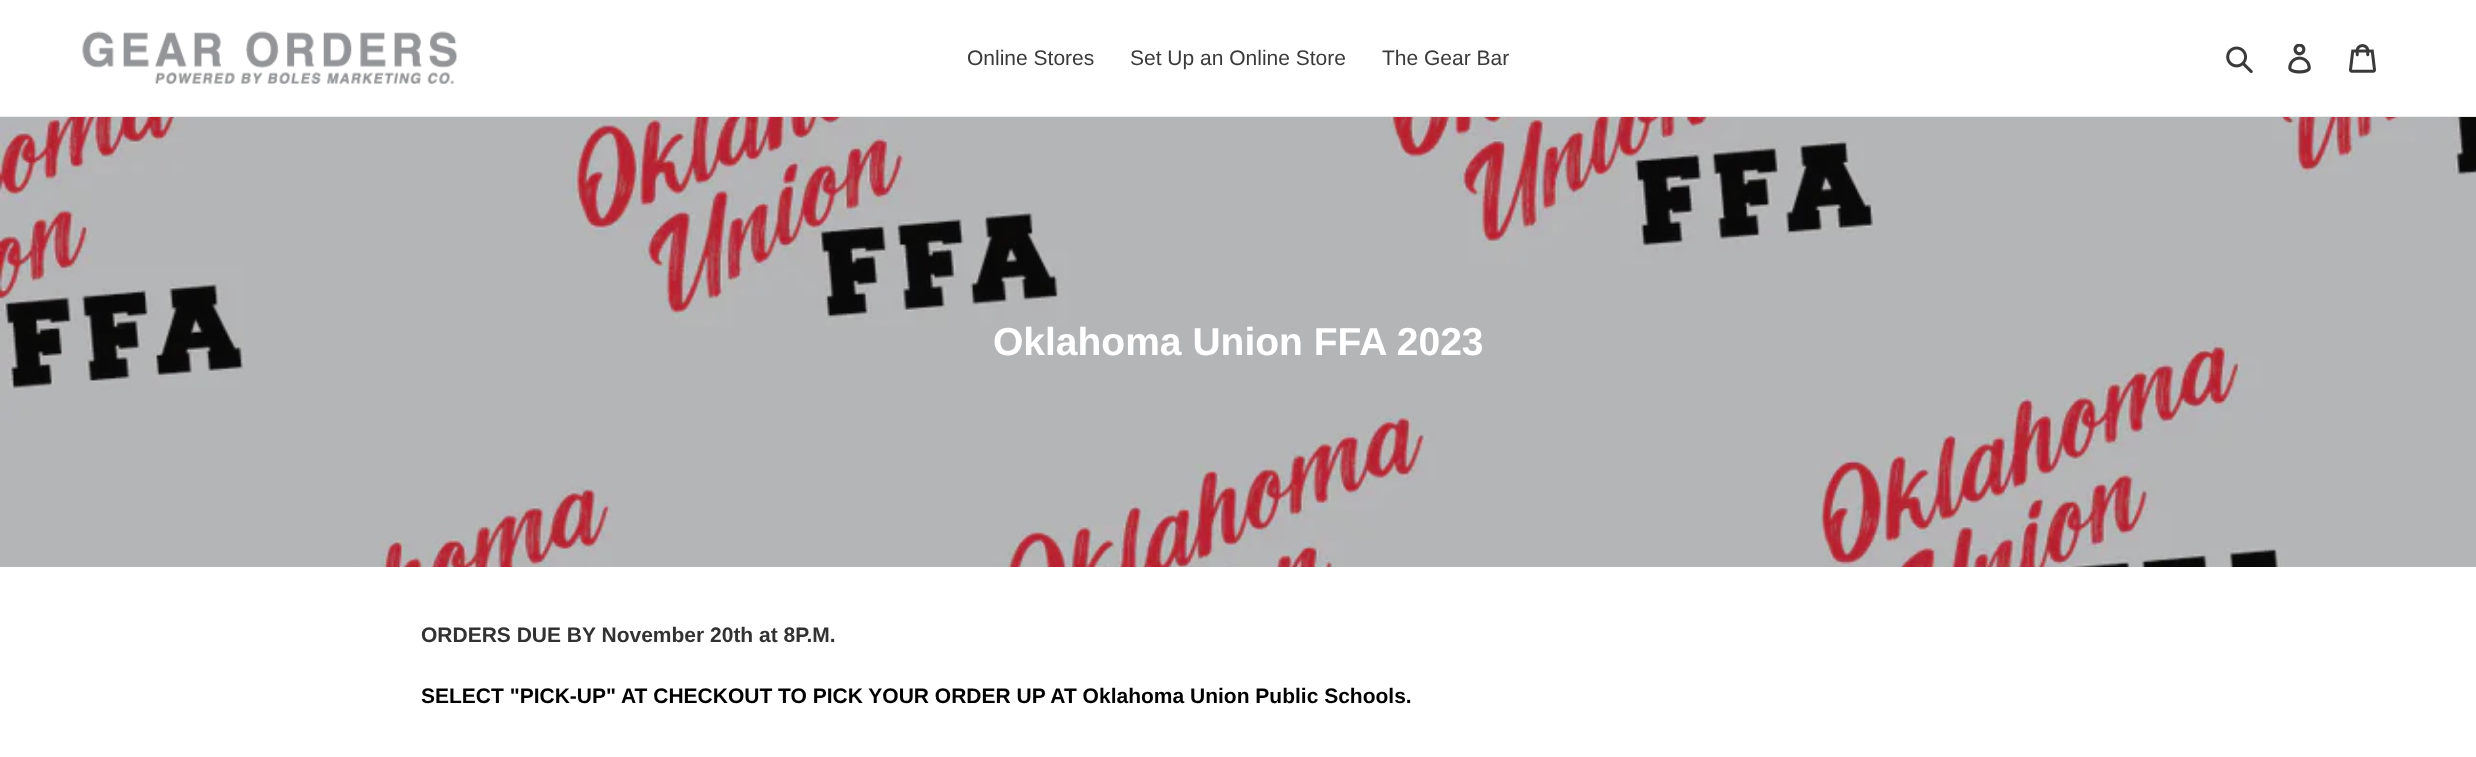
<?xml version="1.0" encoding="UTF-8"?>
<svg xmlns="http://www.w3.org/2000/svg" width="2476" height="757">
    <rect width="100%" height="100%" fill="#FFFFFF"/>
    <rect x="0" y="116" width="2476" height="1" fill="#EBEBEB"/>
    <image x="82" y="31" width="376" height="53" href="img_01.png"/>
    <text x="967" y="65" font-family="Liberation Sans" font-size="21" fill="#3A3A3A">Online Stores</text>
    <text x="1130" y="65" font-family="Liberation Sans" font-size="21" fill="#3A3A3A">Set Up an Online Store</text>
    <text x="1382" y="65" font-family="Liberation Sans" font-size="21" fill="#3A3A3A">The Gear Bar</text>
    <image x="2226" y="46" width="27" height="28" href="img_02.png"/>
    <image x="2288" y="44" width="23" height="30" href="img_03.png"/>
    <image x="2349" y="44" width="27" height="29" href="img_04.png"/>
    <image x="0" y="117" width="2476" height="450" href="img_05.png"/>
    <text x="993" y="355" font-family="Liberation Sans" font-size="39" font-weight="700" fill="#FFFFFF">Oklahoma Union FFA 2023</text>
    <text x="421" y="642" font-family="Liberation Sans" font-size="21" font-weight="700" fill="#333232">ORDERS DUE BY November 20th at 8P.M.</text>
    <text x="421" y="703" font-family="Liberation Sans" font-size="21" font-weight="700" fill="#000000">SELECT "PICK-UP" AT CHECKOUT TO PICK YOUR ORDER UP AT Oklahoma Union Public Schools.</text>
</svg>
